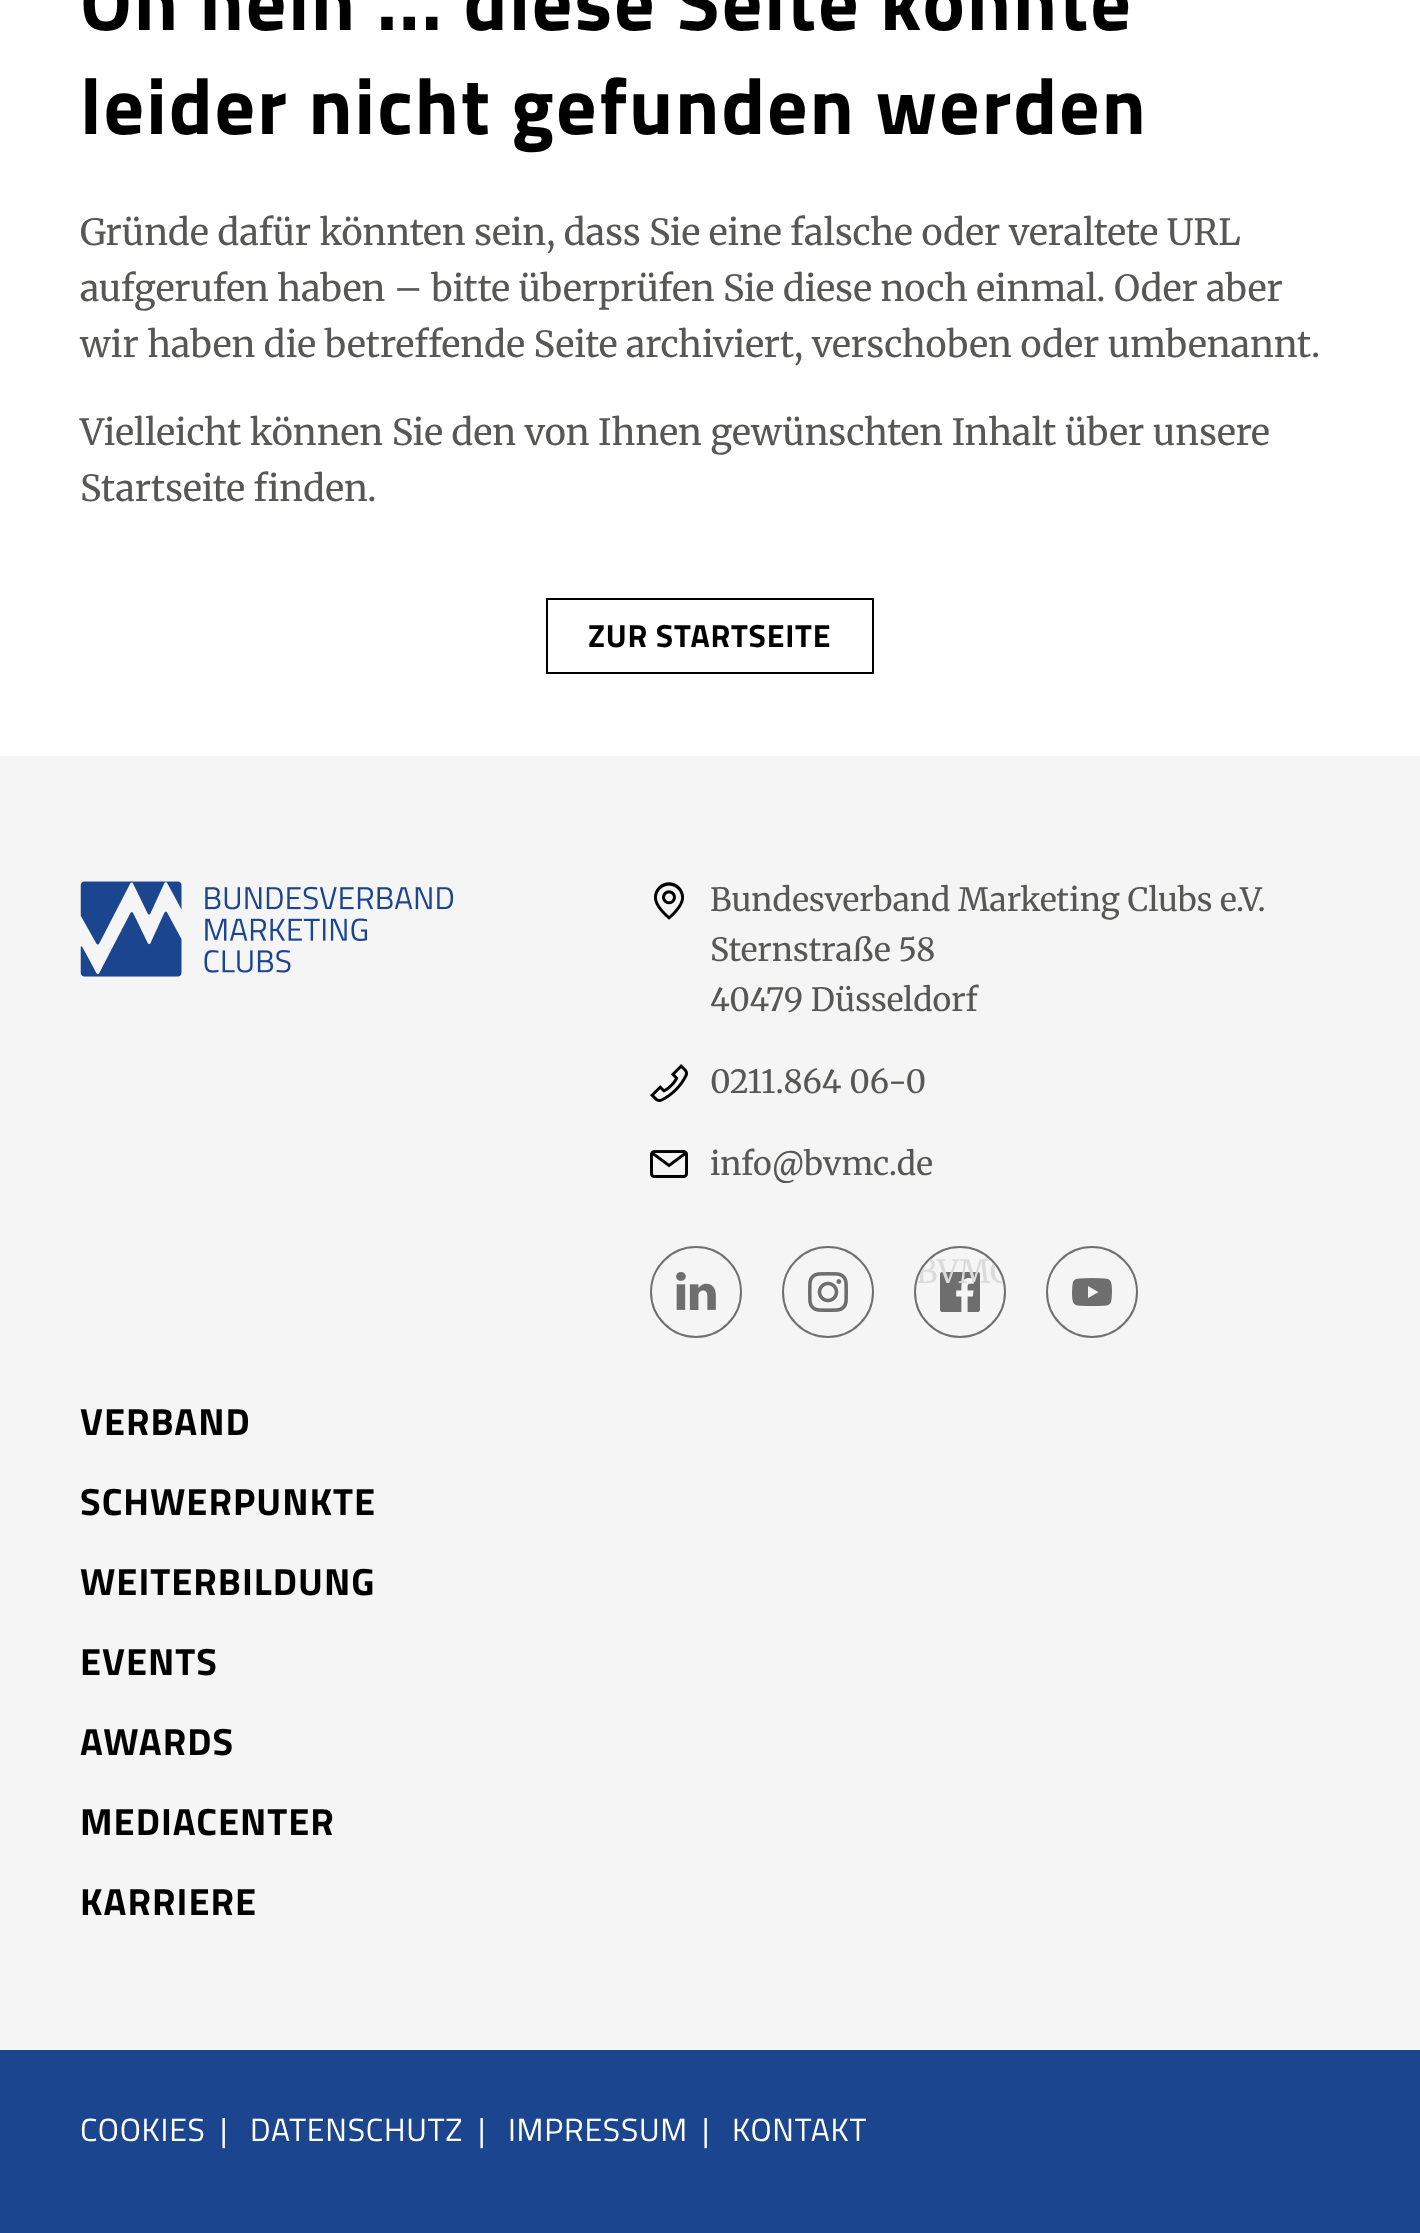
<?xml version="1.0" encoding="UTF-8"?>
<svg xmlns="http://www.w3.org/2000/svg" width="1420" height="2233">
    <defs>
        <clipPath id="clip1"><rect x="916" y="1248" width="88" height="88" rx="44"/></clipPath>
    </defs>
    <rect width="100%" height="100%" fill="#FFFFFF"/>
    <text font-family="Titillium Web" font-size="79.75" font-weight="700" letter-spacing="2" fill="#000000">
        <tspan x="80" y="30">Oh nein ... diese Seite konnte</tspan>
        <tspan x="80" y="134">leider nicht gefunden werden</tspan>
    </text>
    <text font-family="Merriweather" font-size="36" fill="#575756">
        <tspan x="80" y="245">Gründe dafür könnten sein, dass Sie eine falsche oder veraltete URL</tspan>
        <tspan x="80" y="301">aufgerufen haben – bitte überprüfen Sie diese noch einmal. Oder aber</tspan>
        <tspan x="80" y="357">wir haben die betreffende Seite archiviert, verschoben oder umbenannt.</tspan>
    </text>
    <text font-family="Merriweather" font-size="36" fill="#575756">
        <tspan x="80" y="445">Vielleicht können Sie den von Ihnen gewünschten Inhalt über unsere</tspan>
        <tspan x="80" y="501">Startseite finden.</tspan>
    </text>
    <rect x="547" y="599" width="326" height="74" fill="none" stroke="#000000" stroke-width="2"/>
    <text x="588" y="647" font-family="Titillium Web" font-size="32" font-weight="700" letter-spacing="0.75" fill="#000000">ZUR STARTSEITE</text>
    <rect x="0" y="2050" width="1420" height="183" fill="#1B458F"/>
    <rect x="0" y="756" width="1420" height="1294" fill="#F5F5F5"/>
    <image x="80" y="881" width="374" height="96" href="img_01.png"/>
    <image x="654" y="882" width="30" height="38" href="img_02.png"/>
    <text font-family="Merriweather" font-size="32" fill="#575756">
        <tspan x="710" y="911">Bundesverband Marketing Clubs e.V.</tspan>
        <tspan x="710" y="961">Sternstraße 58</tspan>
        <tspan x="710" y="1011">40479 Düsseldorf</tspan>
    </text>
    <image x="650" y="1064" width="38" height="38" href="img_03.png"/>
    <text x="710" y="1093" font-family="Merriweather" font-size="32" fill="#575756">0211.864 06-0</text>
    <image x="650" y="1150" width="38" height="28" href="img_04.png"/>
    <text x="710" y="1175" font-family="Merriweather" font-size="32" fill="#575756">info@bvmc.de</text>
    <circle cx="696" cy="1292" r="45" fill="none" stroke="#707070" stroke-width="2"/>
    <image x="676" y="1272" width="40" height="38" href="img_05.png"/>
    <circle cx="828" cy="1292" r="45" fill="none" stroke="#707070" stroke-width="2"/>
    <image x="808" y="1272" width="40" height="40" href="img_06.png"/>
    <circle cx="960" cy="1292" r="45" fill="none" stroke="#707070" stroke-width="2"/>
    <image x="940" y="1272" width="40" height="40" href="img_07.png"/>
    <g clip-path="url(#clip1)">
        <text x="916" y="1283" font-family="Merriweather" font-size="32" fill="#DBDBDB">BVMC</text>
    </g>
    <circle cx="1092" cy="1292" r="45" fill="none" stroke="#707070" stroke-width="2"/>
    <image x="1072" y="1278" width="40" height="28" href="img_08.png"/>
    <text x="80" y="1435" font-family="Titillium Web" font-size="38" font-weight="700" letter-spacing="1" fill="#000000">VERBAND</text>
    <text x="80" y="1515" font-family="Titillium Web" font-size="38" font-weight="700" letter-spacing="1" fill="#000000">SCHWERPUNKTE</text>
    <text x="80" y="1595" font-family="Titillium Web" font-size="38" font-weight="700" letter-spacing="1" fill="#000000">WEITERBILDUNG</text>
    <text x="80" y="1675" font-family="Titillium Web" font-size="38" font-weight="700" letter-spacing="1" fill="#000000">EVENTS</text>
    <text x="80" y="1755" font-family="Titillium Web" font-size="38" font-weight="700" letter-spacing="1" fill="#000000">AWARDS</text>
    <text x="80" y="1835" font-family="Titillium Web" font-size="38" font-weight="700" letter-spacing="1" fill="#000000">MEDIACENTER</text>
    <text x="80" y="1915" font-family="Titillium Web" font-size="38" font-weight="700" letter-spacing="1" fill="#000000">KARRIERE</text>
    <text x="80" y="2141" font-family="Titillium Web" font-size="32" letter-spacing="0.75" fill="#FFFFFF">COOKIES</text>
    <text x="220" y="2141" font-family="Titillium Web" font-size="32" letter-spacing="0.75" fill="#FFFFFF">|</text>
    <text x="250" y="2141" font-family="Titillium Web" font-size="32" letter-spacing="0.75" fill="#FFFFFF">DATENSCHUTZ</text>
    <text x="478" y="2141" font-family="Titillium Web" font-size="32" letter-spacing="0.75" fill="#FFFFFF">|</text>
    <text x="508" y="2141" font-family="Titillium Web" font-size="32" letter-spacing="0.75" fill="#FFFFFF">IMPRESSUM</text>
    <text x="702" y="2141" font-family="Titillium Web" font-size="32" letter-spacing="0.75" fill="#FFFFFF">|</text>
    <text x="732" y="2141" font-family="Titillium Web" font-size="32" letter-spacing="0.75" fill="#FFFFFF">KONTAKT</text>
</svg>
